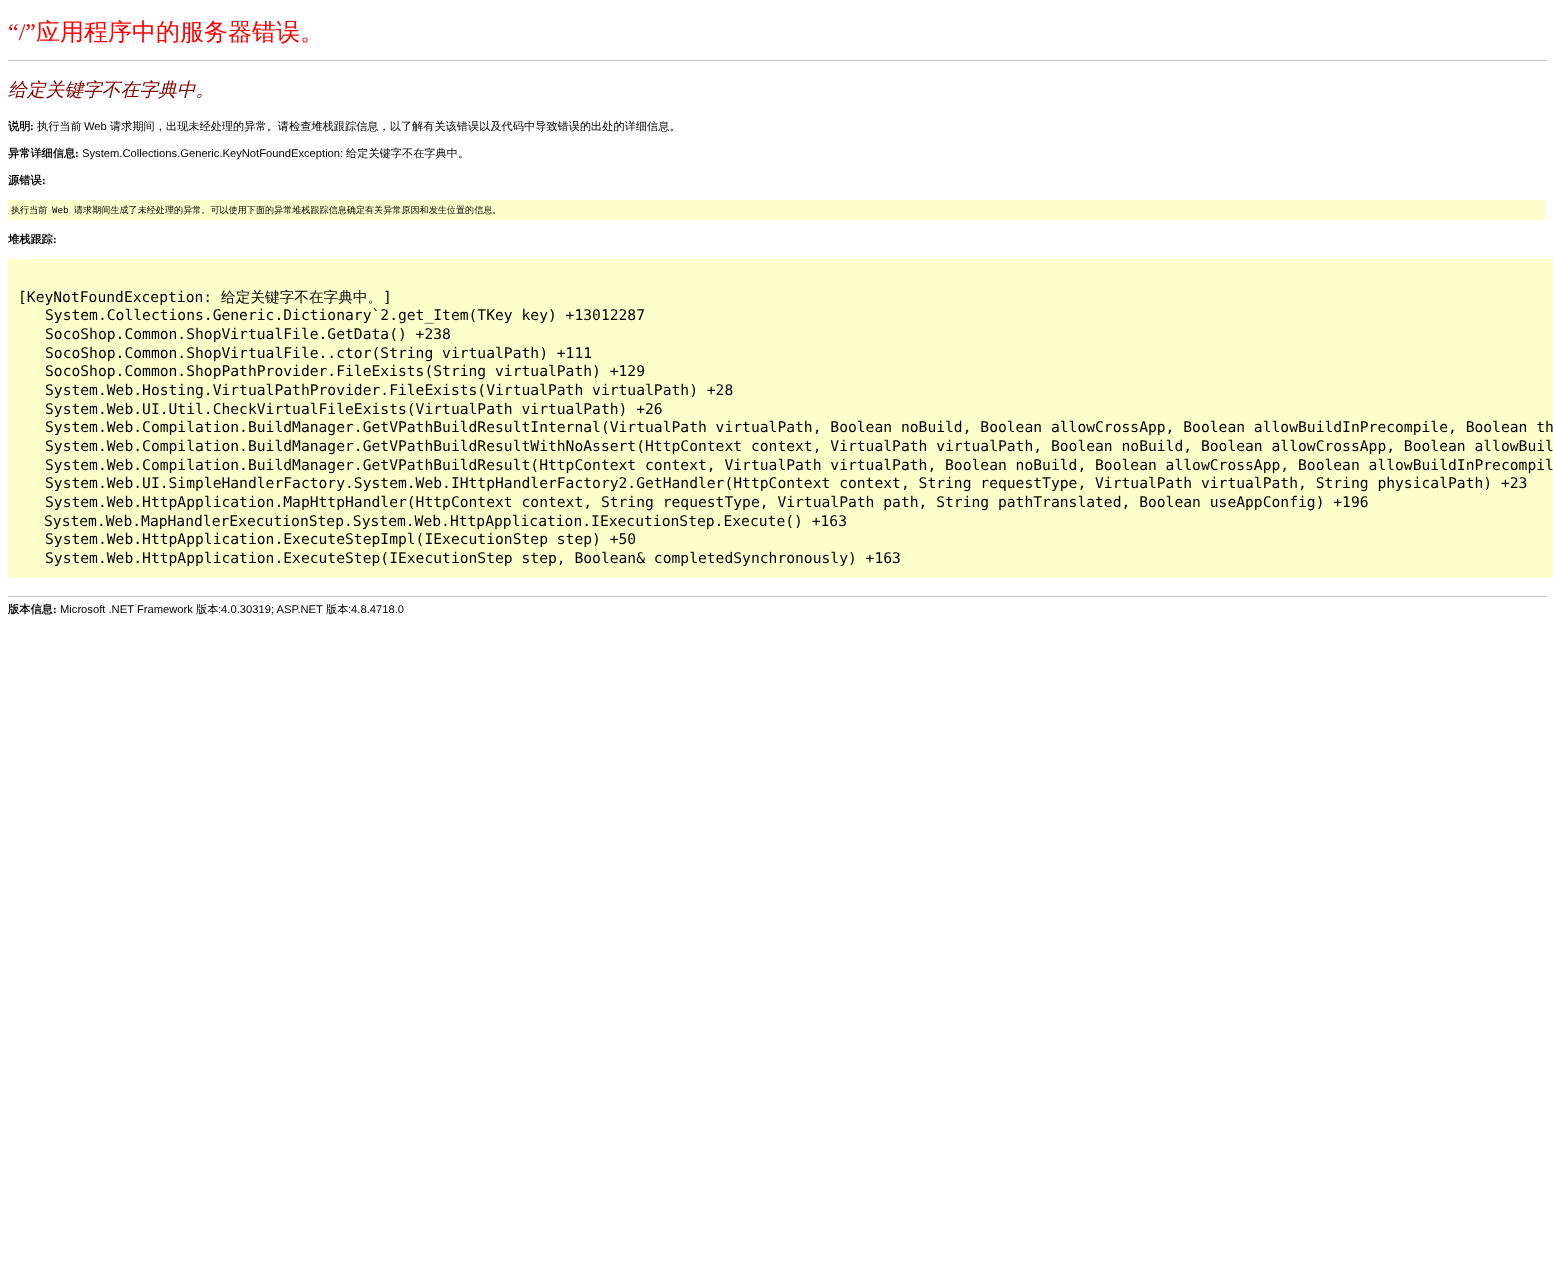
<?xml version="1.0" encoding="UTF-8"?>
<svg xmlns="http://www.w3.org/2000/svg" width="1553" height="1267">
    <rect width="100%" height="100%" fill="#FFFFFF"/>
    <text x="8" y="40" font-family="Liberation Serif" font-size="24" fill="#FF0000">“/”</text>
    <text x="36" y="40" font-family="WenQuanYi Zen Hei" font-size="24" font-weight="500" fill="#FF0000">应用程序中的服务器错误。</text>
    <rect x="8" y="60" width="1539" height="1" fill="#C0C0C0"/>
    <text x="8" y="96" font-family="WenQuanYi Zen Hei" font-size="18.75" font-weight="500" font-style="italic" fill="#800000">给定关键字不在字典中。</text>
    <text x="8" y="130" font-family="WenQuanYi Zen Hei" font-size="11.2" font-weight="700" fill="#000000">说明</text>
    <text x="30" y="130" font-family="Liberation Serif" font-size="11.2" font-weight="700" fill="#000000">:</text>
    <text x="37" y="130" font-family="WenQuanYi Zen Hei" font-size="11.2" font-weight="500" fill="#000000">执行当前</text>
    <text x="84" y="130" font-family="Liberation Sans" font-size="11.2" fill="#000000">Web</text>
    <text x="110" y="130" font-family="WenQuanYi Zen Hei" font-size="11.2" font-weight="500" fill="#000000">请求期间，出现未经处理的异常。请检查堆栈跟踪信息，以了解有关该错误以及代码中导致错误的出处的详细信息。</text>
    <text x="8" y="157" font-family="WenQuanYi Zen Hei" font-size="11.2" font-weight="700" fill="#000000">异常详细信息</text>
    <text x="75" y="157" font-family="Liberation Serif" font-size="11.2" font-weight="700" fill="#000000">:</text>
    <text x="82" y="157" font-family="Liberation Sans" font-size="11.2" fill="#000000">System.Collections.Generic.KeyNotFoundException:</text>
    <text x="346" y="157" font-family="WenQuanYi Zen Hei" font-size="11.2" font-weight="500" fill="#000000">给定关键字不在字典中。</text>
    <text x="8" y="184" font-family="WenQuanYi Zen Hei" font-size="11.2" font-weight="700" fill="#000000">源错误</text>
    <text x="42" y="184" font-family="Liberation Serif" font-size="11.2" font-weight="700" fill="#000000">:</text>
    <rect x="8" y="200" width="1537" height="20" fill="#FFFFCC"/>
    <text x="11" y="213" font-family="WenQuanYi Zen Hei" font-size="9.1" font-weight="500" fill="#000000">执行当前</text>
    <text x="52" y="213" font-family="DejaVu Sans Mono" font-size="9.1" fill="#000000">Web</text>
    <text x="74" y="213" font-family="WenQuanYi Zen Hei" font-size="9.1" font-weight="500" fill="#000000">请求期间生成了未经处理的异常。可以使用下面的异常堆栈跟踪信息确定有关异常原因和发生位置的信息。</text>
    <text x="8" y="243" font-family="WenQuanYi Zen Hei" font-size="11.2" font-weight="700" fill="#000000">堆栈跟踪</text>
    <text x="53" y="243" font-family="Liberation Serif" font-size="11.2" font-weight="700" fill="#000000">:</text>
    <rect x="8" y="259" width="1545" height="319" fill="#FFFFCC"/>
    <text x="18" y="302" font-family="DejaVu Sans Mono" font-size="14.67" fill="#000000">[KeyNotFoundException:</text>
    <text x="221" y="302" font-family="WenQuanYi Zen Hei" font-size="14.67" font-weight="500" fill="#000000">给定关键字不在字典中。</text>
    <text x="383" y="302" font-family="DejaVu Sans Mono" font-size="14.67" fill="#000000">]</text>
    <text font-family="DejaVu Sans Mono" font-size="14.67" fill="#000000">
        <tspan x="45" y="320">System.Collections.Generic.Dictionary`2.get_Item(TKey key) +13012287</tspan>
        <tspan x="45" y="339">SocoShop.Common.ShopVirtualFile.GetData() +238</tspan>
        <tspan x="45" y="358">SocoShop.Common.ShopVirtualFile..ctor(String virtualPath) +111</tspan>
        <tspan x="45" y="376">SocoShop.Common.ShopPathProvider.FileExists(String virtualPath) +129</tspan>
        <tspan x="45" y="395">System.Web.Hosting.VirtualPathProvider.FileExists(VirtualPath virtualPath) +28</tspan>
        <tspan x="45" y="414">System.Web.UI.Util.CheckVirtualFileExists(VirtualPath virtualPath) +26</tspan>
        <tspan x="45" y="432">System.Web.Compilation.BuildManager.GetVPathBuildResultInternal(VirtualPath virtualPath, Boolean noBuild, Boolean allowCrossApp, Boolean allowBuildInPrecompile, Boolean th</tspan>
        <tspan x="45" y="451">System.Web.Compilation.BuildManager.GetVPathBuildResultWithNoAssert(HttpContext context, VirtualPath virtualPath, Boolean noBuild, Boolean allowCrossApp, Boolean allowBuil</tspan>
        <tspan x="45" y="470">System.Web.Compilation.BuildManager.GetVPathBuildResult(HttpContext context, VirtualPath virtualPath, Boolean noBuild, Boolean allowCrossApp, Boolean allowBuildInPrecompil</tspan>
        <tspan x="45" y="488">System.Web.UI.SimpleHandlerFactory.System.Web.IHttpHandlerFactory2.GetHandler(HttpContext context, String requestType, VirtualPath virtualPath, String physicalPath) +23</tspan>
        <tspan x="45" y="507">System.Web.HttpApplication.MapHttpHandler(HttpContext context, String requestType, VirtualPath path, String pathTranslated, Boolean useAppConfig) +196</tspan>
    </text>
    <text x="44" y="526" font-family="DejaVu Sans Mono" font-size="14.67" fill="#000000">System.Web.MapHandlerExecutionStep.System.Web.HttpApplication.IExecutionStep.Execute() +163</text>
    <text font-family="DejaVu Sans Mono" font-size="14.67" fill="#000000">
        <tspan x="45" y="544">System.Web.HttpApplication.ExecuteStepImpl(IExecutionStep step) +50</tspan>
        <tspan x="45" y="563">System.Web.HttpApplication.ExecuteStep(IExecutionStep step, Boolean&amp; completedSynchronously) +163</tspan>
    </text>
    <rect x="8" y="596" width="1539" height="1" fill="#C0C0C0"/>
    <text x="8" y="613" font-family="WenQuanYi Zen Hei" font-size="11.2" font-weight="700" fill="#000000">版本信息</text>
    <text x="53" y="613" font-family="Liberation Serif" font-size="11.2" font-weight="700" fill="#000000">:</text>
    <text x="60" y="613" font-family="Liberation Sans" font-size="11.2" fill="#000000">Microsoft .NET Framework</text>
    <text x="196" y="613" font-family="WenQuanYi Zen Hei" font-size="11.2" font-weight="500" fill="#000000">版本</text>
    <text x="218" y="613" font-family="Liberation Sans" font-size="11.2" fill="#000000">:4.0.30319; ASP.NET</text>
    <text x="326" y="613" font-family="WenQuanYi Zen Hei" font-size="11.2" font-weight="500" fill="#000000">版本</text>
    <text x="348" y="613" font-family="Liberation Sans" font-size="11.2" fill="#000000">:4.8.4718.0</text>
</svg>
